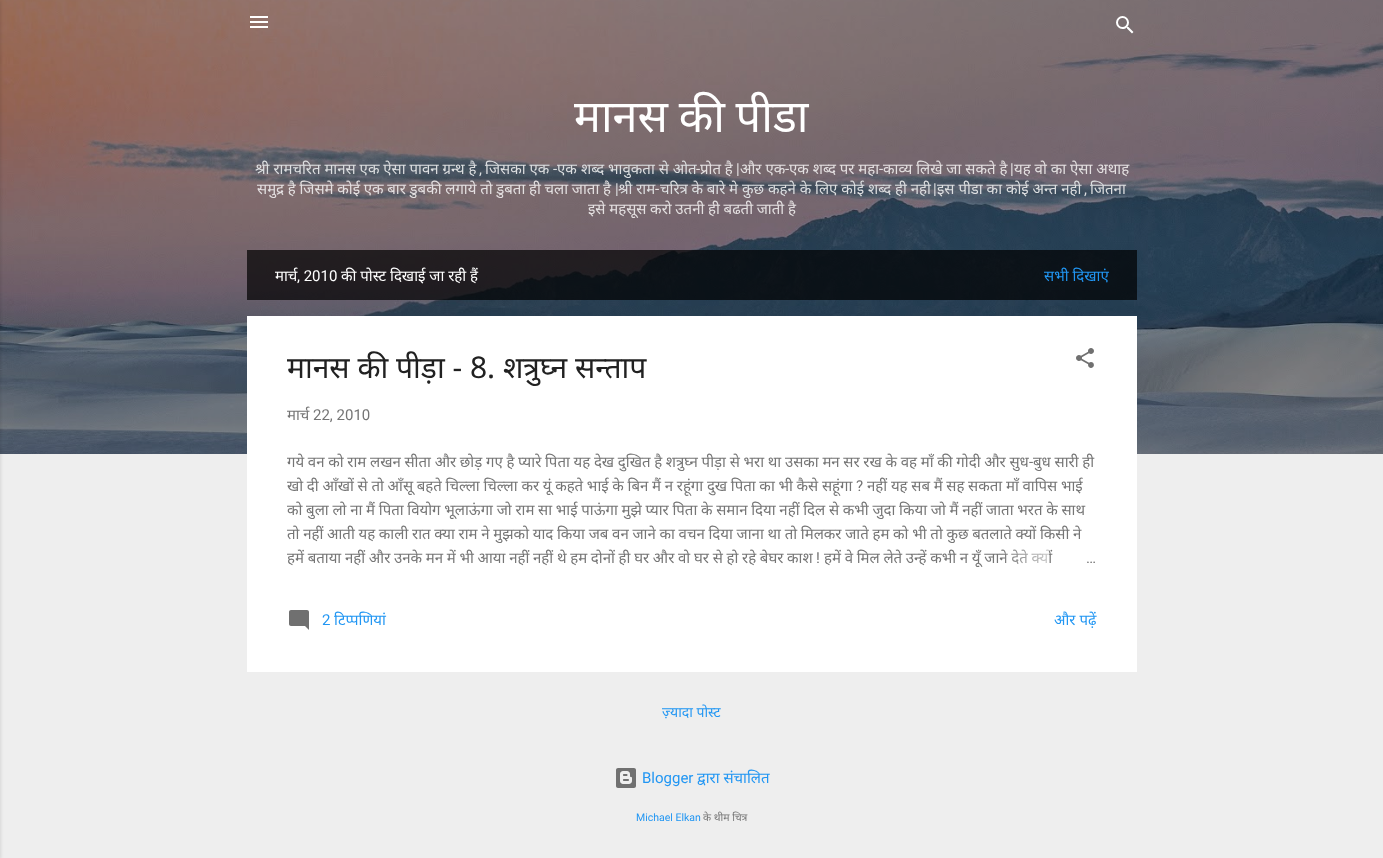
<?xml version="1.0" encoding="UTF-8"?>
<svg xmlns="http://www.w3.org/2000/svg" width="1383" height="858">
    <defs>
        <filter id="blur1" x="-50%" y="-200%" width="200%" height="500%"><feGaussianBlur stdDeviation="1.5"/></filter>
        <clipPath id="clip1"><rect x="287" y="450" width="810" height="120"/></clipPath>
        <linearGradient id="g1" gradientUnits="userSpaceOnUse" x1="1097" y1="558" x2="1001" y2="558"><stop offset="0" stop-color="#FFFFFF"/><stop offset="0.2" stop-color="#FFFFFF"/><stop offset="1" stop-color="#FFFFFF" stop-opacity="0"/></linearGradient>
    </defs>
    <rect width="100%" height="100%" fill="#EEEEEE"/>
    <image x="0" y="0" width="1383" height="454" href="img_01.png"/>
    <rect x="-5" y="1" width="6" height="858" fill="#000000" fill-opacity="0.1" filter="url(#blur1)"/>
    <image x="250" y="16" width="18" height="12" href="img_02.png"/>
    <image x="1116" y="16" width="18" height="18" href="img_03.png"/>
    <text x="574" y="132" word-spacing="-1" font-family="Noto Sans" font-size="45" fill="#FFFFFF">मानस की पीडा</text>
    <text x="255" y="174" font-family="Noto Sans" font-size="15" fill="#DDDFE1">श्री रामचरित मानस एक ऐसा पावन ग्रन्थ है</text>
    <text x="485" y="174" font-family="Noto Sans" font-size="15" fill="#DDDFE1">जिसका एक</text>
    <text x="553" y="174" font-family="Roboto" font-size="15" fill="#DDDFE1">-</text>
    <text x="557" y="174" font-family="Noto Sans" font-size="15" fill="#DDDFE1">एक</text>
    <text x="581" y="174" font-family="Noto Sans" font-size="15" fill="#DDDFE1">शब्द भावुकता से ओत</text>
    <text x="696" y="174" font-family="Roboto" font-size="15" fill="#E4E0E1">-</text>
    <text x="700" y="174" font-family="Noto Sans" font-size="15" fill="#E4E0E1">प्रोत है</text>
    <text x="736" y="174" font-family="Roboto" font-size="15" fill="#E4E0E1">|</text>
    <text x="740" y="174" font-family="Noto Sans" font-size="15" fill="#E4E0E1">और एक</text>
    <text x="789" y="174" font-family="Noto Sans" font-size="15" fill="#E4E0E1">एक शब्द पर महा</text>
    <text x="879" y="174" font-family="Roboto" font-size="15" fill="#E4E0E1">-</text>
    <text x="883" y="174" font-family="Noto Sans" font-size="15" fill="#E4E0E1">काव्य लिखे जा सकते है</text>
    <text x="1010" y="174" font-family="Roboto" font-size="15" fill="#E4E0E1">|</text>
    <text x="1014" y="174" font-family="Noto Sans" font-size="15" fill="#E4E0E1">यह वो का ऐसा अथाह</text>
    <text x="785" y="174" font-family="Roboto" font-size="15" fill="#E4E0E1">-</text>
    <text x="479" y="174" font-family="Roboto" font-size="15" fill="#DDDFE1">,</text>
    <text x="257" y="194" word-spacing="-0.2" font-family="Noto Sans" font-size="15" fill="#E4E0E1">समुद्र है जिसमे कोई एक बार डुबकी लगाये तो डुबता ही चला जाता है</text>
    <text x="615" y="194" font-family="Roboto" font-size="15" fill="#DDDFE1">|</text>
    <text x="618" y="194" word-spacing="-0.2" font-family="Noto Sans" font-size="15" fill="#DDDFE1">श्री राम</text>
    <text x="655" y="194" font-family="Roboto" font-size="15" fill="#E4E0E1">-</text>
    <text x="660" y="194" word-spacing="-0.2" font-family="Noto Sans" font-size="15" fill="#DDDFE1">चरित्र के बारे मे</text>
    <text x="742" y="194" font-family="Noto Sans" font-size="15" fill="#DDDFE1">कुछ कहने के लिए कोई शब्द ही नही</text>
    <text x="937" y="194" font-family="Noto Sans" font-size="15" fill="#DDDFE1">इस पीडा का कोई अन्त नही</text>
    <text x="1090" y="194" font-family="Noto Sans" font-size="15" fill="#DDDFE1">जितना</text>
    <text x="933" y="194" font-family="Roboto" font-size="15" fill="#DDDFE1">|</text>
    <text x="1084" y="194" font-family="Roboto" font-size="15" fill="#DDDFE1">,</text>
    <text x="588" y="214" word-spacing="-0.2" font-family="Noto Sans" font-size="15" fill="#E4E0E1">इसे महसूस करो उतनी ही बढती जाती है</text>
    <rect x="247" y="250" width="890" height="50" fill="#000000" fill-opacity="0.7"/>
    <text x="275" y="281" font-family="Noto Sans" font-size="15" fill="#FFFFFF">मार्च</text>
    <text x="297" y="281" font-family="Roboto" font-size="15" fill="#FFFFFF">, 2010</text>
    <text x="341" y="281" font-family="Noto Sans" font-size="15" fill="#FFFFFF">की पोस्ट दिखाई जा रही हैं</text>
    <text x="1044" y="281" font-family="Noto Sans" font-size="15" fill="#2196F3">सभी दिखाएं</text>
    <rect x="247" y="316" width="890" height="356" fill="#FFFFFF"/>
    <text x="287" y="378" font-family="Noto Sans" font-size="30" fill="#212121">मानस की पीड़ा - 8. शत्रुघ्न सन्ताप</text>
    <image x="1076" y="348" width="18" height="20" href="img_04.png"/>
    <text x="287" y="420" font-family="Noto Sans" font-size="15" fill="#757575">मार्च</text>
    <text x="313" y="420" font-family="Roboto" font-size="15" fill="#757575">22, 2010</text>
    <text x="287" y="467" word-spacing="-0.2" font-family="Noto Sans" font-size="15" fill="#757575">गये वन को राम लखन सीता और छोड़ गए है प्यारे पिता यह देख दुखित है शत्रुघ्न पीड़ा से भरा था उसका मन सर रख के वह माँ की गोदी और सुध</text>
    <text x="1029" y="467" font-family="Roboto" font-size="15" fill="#757575">-</text>
    <text x="1033" y="467" word-spacing="-0.2" font-family="Noto Sans" font-size="15" fill="#757575">बुध सारी ही</text>
    <g clip-path="url(#clip1)">
        <text x="287" y="491" word-spacing="-0.2" font-family="Noto Sans" font-size="15" fill="#757575">खो दी आँखों से तो आँसू बहते चिल्ला चिल्ला कर यूं कहते भाई के बिन मैं न रहूंगा दुख पिता का भी कैसे सहूंगा</text>
    </g>
    <text x="856" y="491" font-family="Roboto" font-size="15" fill="#757575">?</text>
    <text x="867" y="491" word-spacing="-0.2" font-family="Noto Sans" font-size="15" fill="#757575">नहीं यह सब मैं सह सकता माँ वापिस भाई</text>
    <g clip-path="url(#clip1)">
        <text font-family="Noto Sans" font-size="15" fill="#757575">
            <tspan x="287" y="515" word-spacing="-0.2">को बुला लो ना मैं पिता वियोग भूलाऊंगा जो राम सा भाई पाऊंगा मुझे प्यार पिता के समान दिया नहीं दिल से कभी जुदा किया जो मैं नहीं जाता भरत के साथ</tspan>
            <tspan x="287" y="539" word-spacing="-0.2">तो नहीं आती यह काली रात क्या राम ने मुझको याद किया जब वन जाने का वचन दिया जाना था तो मिलकर जाते हम को भी तो कुछ बतलाते क्यों किसी ने</tspan>
        </text>
    </g>
    <text x="287" y="563" word-spacing="-0.2" font-family="Noto Sans" font-size="15" fill="#757575">हमें बताया नहीं और उनके मन में भी आया नहीं नहीं थे हम दोनों ही घर और वो घर से हो रहे बेघर काश</text>
    <text x="816" y="563" font-family="Roboto" font-size="15" fill="#757575">!</text>
    <text x="824" y="563" word-spacing="-0.2" font-family="Noto Sans" font-size="15" fill="#757575">हमें वे मिल लेते उन्हें कभी न यूँ जाने देते क्यों</text>
    <rect x="1003" y="549" width="46" height="15" fill="url(#g1)"/>
    <text x="1086" y="563" font-family="Roboto" font-size="15" fill="#757575">…</text>
    <image x="289" y="610" width="20" height="20" href="img_05.png"/>
    <text x="322" y="625" font-family="Roboto" font-size="15" fill="#2196F3">2</text>
    <text x="334" y="625" font-family="Noto Sans" font-size="15" fill="#2196F3">टिप्पणियां</text>
    <text x="1054" y="625" font-family="Noto Sans" font-size="15" fill="#2196F3">और पढ़ें</text>
    <text x="662" y="717" font-family="Noto Sans" font-size="14" fill="#2196F3">ज़्यादा पोस्ट</text>
    <image x="616" y="768" width="20" height="20" href="img_06.png"/>
    <text x="642" y="783" font-family="Roboto" font-size="15" fill="#2196F3">Blogger</text>
    <text x="697" y="783" font-family="Noto Sans" font-size="15" fill="#2196F3">द्वारा संचालित</text>
    <text x="636" y="821" font-family="Roboto" font-size="10.5" fill="#2196F3">Michael Elkan</text>
    <text x="703" y="821" font-family="Noto Sans" font-size="10.5" fill="#757575">के थीम चित्र</text>
</svg>
